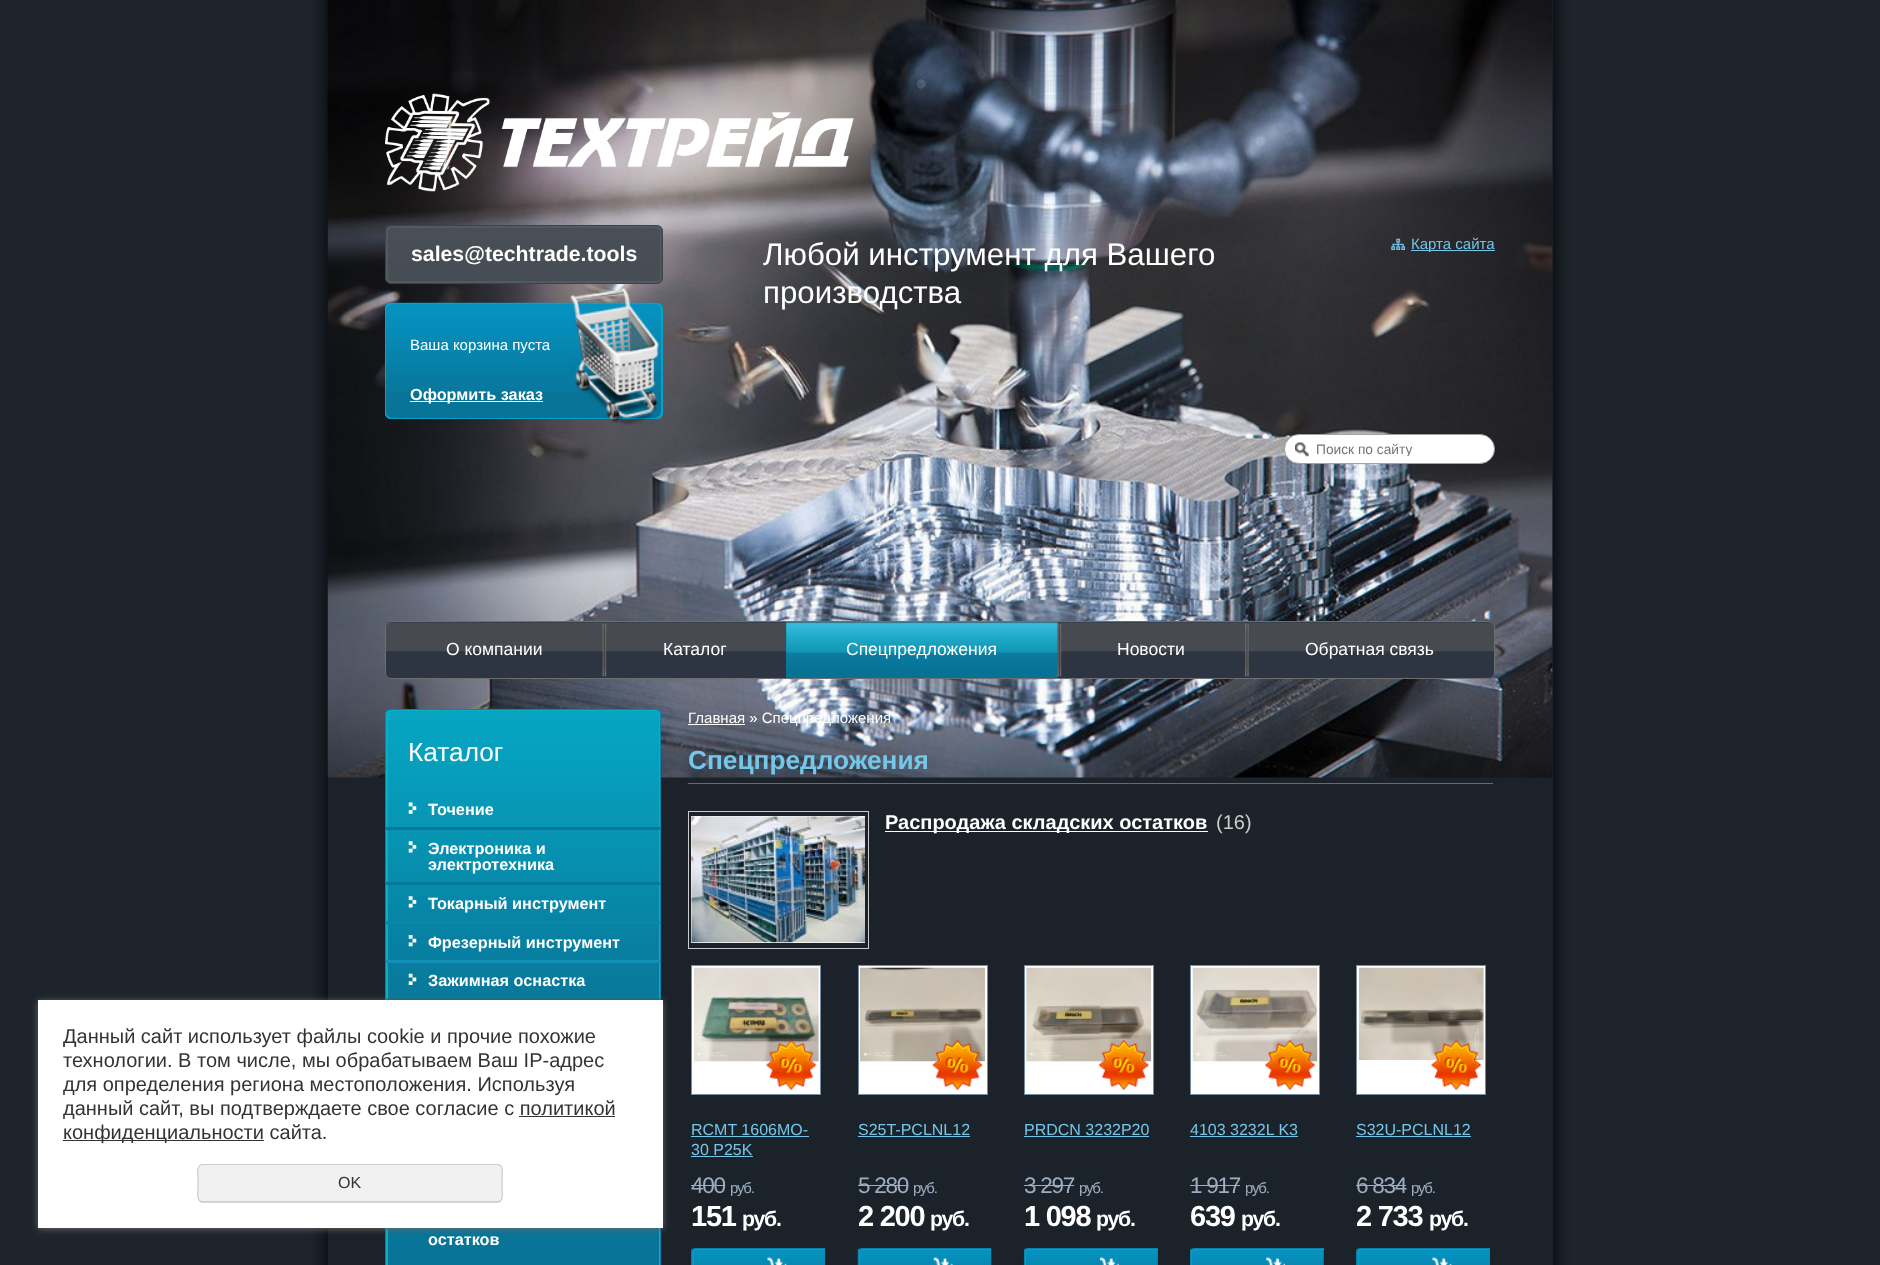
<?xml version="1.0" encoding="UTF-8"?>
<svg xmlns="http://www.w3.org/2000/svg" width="1880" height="1265">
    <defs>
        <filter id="blur1" x="-50%" y="-200%" width="200%" height="500%"><feGaussianBlur stdDeviation="9.5"/></filter>
        <filter id="blur2" x="-50%" y="-200%" width="200%" height="500%"><feGaussianBlur stdDeviation="3"/></filter>
        <clipPath id="clip1"><rect x="1316" y="441" width="177" height="15"/></clipPath>
        <clipPath id="clip2"><rect x="688" y="965" width="137" height="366"/></clipPath>
        <clipPath id="clip3"><rect x="854" y="965" width="137" height="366"/></clipPath>
        <clipPath id="clip4"><rect x="1020" y="965" width="138" height="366"/></clipPath>
        <clipPath id="clip5"><rect x="1186" y="965" width="138" height="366"/></clipPath>
        <clipPath id="clip6"><rect x="1353" y="965" width="137" height="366"/></clipPath>
    </defs>
    <rect width="100%" height="100%" fill="#1D242C"/>
    <rect x="328" y="-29" width="1225" height="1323" fill="#000000" filter="url(#blur1)"/>
    <rect x="328" y="0" width="1225" height="1265" fill="#1B2229"/>
    <image x="327" y="0" width="1226" height="778" href="img_01.png"/>
    <rect x="385" y="709" width="276" height="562" rx="6" fill="#087497"/>
    <image x="385" y="710" width="276" height="288" href="img_13.png"/>
    <path d="M 390 711 H 654 C 657 711 659 713 659 716 V 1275 L 658 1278 C 659 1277 660 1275 660 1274 V 715 C 660 712 658 710 655 710 H 391 C 390 710 388 711 387 712 Z" fill="#07B0C9"/>
    <path d="M 392 711 H 656 L 659 712 C 658 711 656 710 655 710 H 391 C 388 710 386 712 386 715 V 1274 C 386 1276 387 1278 389 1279 C 389 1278 388 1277 388 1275 V 716 C 388 713 390 711 392 711 Z" fill="#07B0C9"/>
    <rect x="385.5" y="709.5" width="275" height="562" rx="5.5" fill="none" stroke="#0782AB"/>
    <image x="386" y="998" width="274" height="2" href="img_18.png"/>
    <rect x="38" y="1001" width="625" height="228" fill="#666666" filter="url(#blur2)"/>
    <rect x="38" y="1000" width="625" height="228" fill="#FFFFFF"/>
    <text font-family="Liberation Sans" font-size="20" fill="#333333">
        <tspan x="63" y="1043">Данный сайт использует файлы cookie и прочие похожие</tspan>
        <tspan x="63" y="1067">технологии. В том числе, мы обрабатываем Ваш IP-адрес</tspan>
        <tspan x="63" y="1091">для определения региона местоположения. Используя</tspan>
        <tspan x="63" y="1115">данный сайт, вы подтверждаете свое согласие с политикой</tspan>
    </text>
    <rect x="63" y="1140" width="201" height="1" fill="#333333"/>
    <text x="63" y="1139" font-family="Liberation Sans" font-size="20" fill="#333333">конфиденциальности сайта.</text>
    <rect x="519" y="1116" width="96" height="1" fill="#333333"/>
    <rect x="198" y="1164" width="305" height="39" rx="5" fill="#F1F1F1"/>
    <path d="M 500.5 1200.5 C 500 1201.5 498.5 1202 497.5 1202 H 202.5 C 201.5 1202 200 1201.5 199.5 1200.5" fill="none" stroke="#B3B3B3" stroke-width="1.2"/>
    <path d="M 199.5 1200.5 C 196.5 1198 198 1191 198 1188 V 1178.5 C 198 1175 196 1164.5 202.5 1164.5 H 497.5 C 504 1164.5 502 1175 502 1178.5 V 1188 C 502 1191 503.5 1198 500.5 1200.5" fill="none" stroke="#CCCCCC" stroke-width="1.2"/>
    <text x="338" y="1188" font-family="Liberation Sans" font-size="16" fill="#333333">OK</text>
    <image x="385" y="93" width="469" height="99" href="img_02.png"/>
    <image x="385" y="226" width="277" height="58" href="img_03.png"/>
    <path d="M 389 226 C 387 227 386 229 386 231 V 278 C 386 281 388 283 391 283 H 656 C 658 283 660 282 661 280 C 660 281 659 281 658 281 H 392 C 390 281 388 279 388 276 V 230 C 388 228 389 227 389 226 Z" fill="#515961"/>
    <path d="M 390 228 H 655 C 658 228 660 230 660 232 V 279 L 659 282 C 660 281 661 279 661 278 V 231 C 661 228 659 226 656 226 H 391 C 389 226 387 227 386 229 C 387 229 388 228 390 228 Z" fill="#515961"/>
    <path d="M 386 279 C 387 282 389 283 391 283 H 656 C 659 283 661 281 661 278 V 231 C 661 230 660 228 659 227 L 660 230 V 276 C 660 279 658 281 655 281 H 390 C 388 281 387 280 386 279 Z" fill="#515961"/>
    <path d="M 392 228 H 658 C 659 228 660 228 661 229 C 660 227 658 226 656 226 H 391 C 388 226 386 228 386 231 V 278 C 386 280 387 282 389 283 C 389 282 388 281 388 279 V 232 C 388 230 390 228 392 228 Z" fill="#515961"/>
    <rect x="385.5" y="225.5" width="277" height="58" rx="5.5" fill="none" stroke="#424243"/>
    <text x="411" y="261" font-family="Liberation Sans" font-size="21.25" font-weight="700" fill="#FFFFFF">sales@techtrade.tools</text>
    <rect x="385" y="303" width="278" height="116" rx="6" fill="#087498"/>
    <image x="385" y="302" width="278" height="90" href="img_04.png"/>
    <path d="M 387 305 C 386 306 385 307 385 309 V 413 C 385 416 388 419 391 419 H 657 C 659 419 661 418 662 416 C 661 417 660 418 658 418 H 392 C 389 418 386 415 386 411 V 308 Z" fill="#07A1C9"/>
    <path d="M 390 304 H 655 C 658 304 661 307 661 310 V 414 C 661 416 660 418 658 419 C 661 418 663 416 663 413 V 309 C 663 306 660 303 657 303 H 391 C 389 303 387 304 386 306 C 387 305 389 304 390 304 Z" fill="#07A1C9"/>
    <path d="M 386 416 C 387 418 389 419 391 419 H 657 C 660 419 663 416 663 413 V 309 C 663 307 662 305 660 304 C 660 305 661 306 661 308 V 411 C 661 415 658 418 655 418 H 390 C 388 418 387 417 386 416 Z" fill="#07A1C9"/>
    <path d="M 392 304 H 659 L 662 306 C 661 304 659 303 657 303 H 391 C 388 303 385 306 385 309 V 413 C 385 415 386 417 388 418 C 387 417 386 415 386 414 V 310 C 386 307 389 304 392 304 Z" fill="#07A1C9"/>
    <text x="410" y="350" font-family="Liberation Sans" font-size="15" fill="#FFFFFF">Ваша корзина пуста</text>
    <rect x="410" y="401" width="133" height="1" fill="#FFFFFF"/>
    <text x="410" y="400" font-family="Liberation Sans" font-size="16.25" font-weight="700" fill="#FFFFFF">Оформить заказ</text>
    <image x="570" y="287" width="89" height="138" href="img_05.png"/>
    <text font-family="Liberation Sans" font-size="31.25" fill="#FFFFFF">
        <tspan x="763" y="265">Любой инструмент для Вашего</tspan>
        <tspan x="763" y="303">производства</tspan>
    </text>
    <image x="1391" y="238" width="14" height="12" href="img_06.png"/>
    <rect x="1411" y="250" width="84" height="1" fill="#74C7E9"/>
    <text x="1411" y="249" font-family="Liberation Sans" font-size="15" fill="#74C7E9">Карта сайта</text>
    <rect x="1284.5" y="434.5" width="210" height="29" rx="14.5" fill="#FFFFFF" stroke="#A1A1A1"/>
    <image x="1295" y="442" width="14" height="15" href="img_07.png"/>
    <g clip-path="url(#clip1)">
        <text x="1316" y="454" font-family="Liberation Sans" font-size="13.75" fill="#757575">Поиск по сайту</text>
    </g>
    <rect x="385" y="621" width="1110" height="58" rx="6" fill="#2C3541"/>
    <image x="385" y="622" width="1110" height="30" href="img_08.png"/>
    <rect x="385.5" y="621.5" width="1109" height="57" rx="5.5" fill="none" stroke="#6E6E70"/>
    <text x="446" y="655" font-family="Liberation Sans" font-size="17.5" fill="#FFFFFF">О компании</text>
    <image x="602" y="623" width="5" height="54" href="img_09.png"/>
    <text x="663" y="655" font-family="Liberation Sans" font-size="17.5" fill="#FFFFFF">Каталог</text>
    <rect x="786" y="623" width="272" height="55" fill="#087295"/>
    <image x="786" y="622" width="272" height="45" href="img_10.png"/>
    <text x="846" y="655" font-family="Liberation Sans" font-size="17.5" fill="#FFFFFF">Спецпредложения</text>
    <image x="1057" y="623" width="5" height="54" href="img_11.png"/>
    <text x="1117" y="655" font-family="Liberation Sans" font-size="17.5" fill="#FFFFFF">Новости</text>
    <image x="1245" y="623" width="4" height="54" href="img_12.png"/>
    <text x="1305" y="655" font-family="Liberation Sans" font-size="17.5" fill="#FFFFFF">Обратная связь</text>
    <text x="408" y="761" font-family="Liberation Sans" font-size="26.25" fill="#FFFFFF">Каталог</text>
    <rect x="386" y="827" width="274" height="3" fill="#07769B"/>
    <image x="408" y="802" width="9" height="12" href="img_14.png"/>
    <text x="428" y="815" font-family="Liberation Sans" font-size="16.25" font-weight="700" fill="#FFFFFF">Точение</text>
    <rect x="386" y="882" width="274" height="3" fill="#07769B"/>
    <image x="408" y="841" width="9" height="12" href="img_15.png"/>
    <text font-family="Liberation Sans" font-size="16.25" font-weight="700" fill="#FFFFFF">
        <tspan x="428" y="854">Электроника и</tspan>
        <tspan x="428" y="870">электротехника</tspan>
    </text>
    <rect x="386" y="921" width="274" height="3" fill="#0E85AC"/>
    <image x="408" y="896" width="9" height="12" href="img_16.png"/>
    <text x="428" y="909" font-family="Liberation Sans" font-size="16.25" font-weight="700" fill="#FFFFFF">Токарный инструмент</text>
    <rect x="386" y="960" width="274" height="3" fill="#1390B8"/>
    <image x="408" y="935" width="9" height="12" href="img_17.png"/>
    <text x="428" y="948" font-family="Liberation Sans" font-size="16.25" font-weight="700" fill="#FFFFFF">Фрезерный инструмент</text>
    <image x="408" y="973" width="9" height="12" href="img_19.png"/>
    <text x="428" y="986" font-family="Liberation Sans" font-size="16.25" font-weight="700" fill="#FFFFFF">Зажимная оснастка</text>
    <text x="428" y="1245" font-family="Liberation Sans" font-size="16.25" font-weight="700" fill="#FFFFFF">остатков</text>
    <rect x="688" y="724" width="57" height="1" fill="#FFFFFF"/>
    <text x="688" y="723" font-family="Liberation Sans" font-size="15" fill="#FFFFFF">Главная » Спецпредложения</text>
    <rect x="688" y="783" width="805" height="1" fill="#557081"/>
    <text x="688" y="769" font-family="Liberation Sans" font-size="26.25" font-weight="700" fill="#74C7E9">Спецпредложения</text>
    <rect x="688.5" y="811.5" width="180" height="137" fill="none" stroke="#CCCCCC"/>
    <rect x="691" y="816" width="174" height="127" fill="#FFFFFF"/>
    <image x="691" y="816" width="174" height="127" href="img_20.png"/>
    <rect x="885" y="831" width="323" height="1" fill="#FFFFFF"/>
    <text x="885" y="829" font-family="Liberation Sans" font-size="20" font-weight="700" fill="#FFFFFF">Распродажа складских остатков</text>
    <text x="1216" y="829" font-family="Liberation Sans" font-size="20" fill="#CCCCCC">(16)</text>
    <rect x="691.5" y="965.5" width="129" height="129" fill="#FFFFFF" stroke="#748DA5"/>
    <image x="694" y="967" width="125" height="95" href="img_21.png"/>
    <image x="766" y="1040" width="51" height="50" href="img_22.png"/>
    <text x="691" y="1135" font-family="Liberation Sans" font-size="16" fill="#74C7E9">RCMT 1606MO-</text>
    <rect x="691" y="1136" width="118" height="1" fill="#74C7E9"/>
    <text x="691" y="1155" font-family="Liberation Sans" font-size="16" fill="#74C7E9">30 P25K</text>
    <rect x="691" y="1156" width="62" height="1" fill="#74C7E9"/>
    <text x="691" y="1193" font-family="Liberation Sans" font-size="22.5" letter-spacing="-1.25" fill="#9CAEC0">400</text>
    <rect x="691" y="1185" width="34" height="1" fill="#9CAEC0"/>
    <text x="730" y="1193" font-family="Liberation Sans" font-size="15" letter-spacing="-1.25" fill="#9CAEC0">руб.</text>
    <text x="691" y="1226" font-family="Liberation Sans" font-size="29" font-weight="700" letter-spacing="-1.25" fill="#FFFFFF">151</text>
    <text x="742" y="1226" font-family="Liberation Sans" font-size="21.25" font-weight="700" letter-spacing="-1.25" fill="#FFFFFF">руб.</text>
    <image x="691" y="1248" width="134" height="17" href="img_23.png"/>
    <g clip-path="url(#clip2)">
        <path d="M 696 1250 H 928 C 927 1250 926 1249 926 1249 H 696 C 694 1249 693 1250 693 1252 V 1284 C 693 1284 693 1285 694 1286 V 1258 C 694 1257 693 1250 696 1250 Z" fill="#07A0C8"/>
        <rect x="691.5" y="1248.5" width="237" height="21" rx="3.5" fill="none" stroke="#0782AB"/>
    </g>
    <image x="767" y="1257" width="20" height="8" href="img_24.png"/>
    <rect x="858.5" y="965.5" width="129" height="129" fill="#FFFFFF" stroke="#748DA5"/>
    <image x="860" y="967" width="125" height="95" href="img_25.png"/>
    <image x="932" y="1040" width="51" height="50" href="img_26.png"/>
    <text x="858" y="1135" font-family="Liberation Sans" font-size="16" fill="#74C7E9">S25T-PCLNL12</text>
    <rect x="858" y="1136" width="112" height="1" fill="#74C7E9"/>
    <text x="858" y="1193" font-family="Liberation Sans" font-size="22.5" letter-spacing="-1.25" fill="#9CAEC0">5 280</text>
    <rect x="858" y="1185" width="50" height="1" fill="#9CAEC0"/>
    <text x="913" y="1193" font-family="Liberation Sans" font-size="15" letter-spacing="-1.25" fill="#9CAEC0">руб.</text>
    <text x="858" y="1226" font-family="Liberation Sans" font-size="29" font-weight="700" letter-spacing="-1.25" fill="#FFFFFF">2 200</text>
    <text x="930" y="1226" font-family="Liberation Sans" font-size="21.25" font-weight="700" letter-spacing="-1.25" fill="#FFFFFF">руб.</text>
    <image x="857" y="1248" width="135" height="17" href="img_27.png"/>
    <g clip-path="url(#clip3)">
        <path d="M 862 1250 H 1094 C 1093 1250 1092 1249 1092 1249 H 862 C 860 1249 859 1250 859 1252 V 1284 C 859 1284 859 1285 860 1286 V 1258 C 860 1257 859 1250 862 1250 Z" fill="#07A0C8"/>
        <rect x="858.5" y="1248.5" width="236" height="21" rx="3.5" fill="none" stroke="#0782AB"/>
    </g>
    <image x="933" y="1257" width="20" height="8" href="img_28.png"/>
    <rect x="1024.5" y="965.5" width="129" height="129" fill="#FFFFFF" stroke="#748DA5"/>
    <image x="1026" y="967" width="126" height="95" href="img_29.png"/>
    <image x="1098" y="1040" width="51" height="50" href="img_30.png"/>
    <text x="1024" y="1135" font-family="Liberation Sans" font-size="16" fill="#74C7E9">PRDCN 3232P20</text>
    <rect x="1024" y="1136" width="125" height="1" fill="#74C7E9"/>
    <text x="1024" y="1193" font-family="Liberation Sans" font-size="22.5" letter-spacing="-1.25" fill="#9CAEC0">3 297</text>
    <rect x="1024" y="1185" width="50" height="1" fill="#9CAEC0"/>
    <text x="1079" y="1193" font-family="Liberation Sans" font-size="15" letter-spacing="-1.25" fill="#9CAEC0">руб.</text>
    <text x="1024" y="1226" font-family="Liberation Sans" font-size="29" font-weight="700" letter-spacing="-1.25" fill="#FFFFFF">1 098</text>
    <text x="1096" y="1226" font-family="Liberation Sans" font-size="21.25" font-weight="700" letter-spacing="-1.25" fill="#FFFFFF">руб.</text>
    <path d="M 1028 1248 H 1158 V 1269 H 1028 C 1026 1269 1024 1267 1024 1265 V 1252 C 1024 1250 1026 1248 1028 1248 Z" fill="#087599"/>
    <image x="1023" y="1248" width="135" height="17" href="img_31.png"/>
    <g clip-path="url(#clip4)">
        <path d="M 1029 1250 H 1260 C 1259 1249 1258 1249 1258 1249 H 1028 C 1026 1249 1025 1250 1025 1252 V 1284 C 1025 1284 1025 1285 1026 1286 V 1258 C 1026 1254 1025 1250 1029 1250 Z" fill="#07A0C8"/>
        <rect x="1024.5" y="1248.5" width="236" height="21" rx="3.5" fill="none" stroke="#0782AB"/>
    </g>
    <image x="1100" y="1257" width="19" height="8" href="img_32.png"/>
    <rect x="1190.5" y="965.5" width="129" height="129" fill="#FFFFFF" stroke="#748DA5"/>
    <image x="1192" y="967" width="126" height="95" href="img_33.png"/>
    <image x="1265" y="1040" width="50" height="50" href="img_34.png"/>
    <text x="1190" y="1135" font-family="Liberation Sans" font-size="16" fill="#74C7E9">4103 3232L K3</text>
    <rect x="1190" y="1136" width="108" height="1" fill="#74C7E9"/>
    <text x="1190" y="1193" font-family="Liberation Sans" font-size="22.5" letter-spacing="-1.25" fill="#9CAEC0">1 917</text>
    <rect x="1190" y="1185" width="50" height="1" fill="#9CAEC0"/>
    <text x="1245" y="1193" font-family="Liberation Sans" font-size="15" letter-spacing="-1.25" fill="#9CAEC0">руб.</text>
    <text x="1190" y="1226" font-family="Liberation Sans" font-size="29" font-weight="700" letter-spacing="-1.25" fill="#FFFFFF">639</text>
    <text x="1241" y="1226" font-family="Liberation Sans" font-size="21.25" font-weight="700" letter-spacing="-1.25" fill="#FFFFFF">руб.</text>
    <image x="1190" y="1248" width="134" height="17" href="img_35.png"/>
    <g clip-path="url(#clip5)">
        <path d="M 1195 1250 H 1426 C 1425 1249 1424 1249 1424 1249 H 1194 C 1192 1249 1191 1250 1191 1252 V 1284 C 1191 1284 1191 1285 1192 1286 V 1252 C 1193 1251 1194 1250 1195 1250 Z" fill="#07A0C8"/>
        <rect x="1190.5" y="1248.5" width="237" height="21" rx="3.5" fill="none" stroke="#0782AB"/>
    </g>
    <image x="1266" y="1257" width="19" height="8" href="img_36.png"/>
    <rect x="1356.5" y="965.5" width="129" height="129" fill="#FFFFFF" stroke="#748DA5"/>
    <image x="1358" y="967" width="126" height="93" href="img_37.png"/>
    <image x="1431" y="1040" width="51" height="50" href="img_38.png"/>
    <text x="1356" y="1135" font-family="Liberation Sans" font-size="16" fill="#74C7E9">S32U-PCLNL12</text>
    <rect x="1356" y="1136" width="115" height="1" fill="#74C7E9"/>
    <text x="1356" y="1193" font-family="Liberation Sans" font-size="22.5" letter-spacing="-1.25" fill="#9CAEC0">6 834</text>
    <rect x="1356" y="1185" width="50" height="1" fill="#9CAEC0"/>
    <text x="1411" y="1193" font-family="Liberation Sans" font-size="15" letter-spacing="-1.25" fill="#9CAEC0">руб.</text>
    <text x="1356" y="1226" font-family="Liberation Sans" font-size="29" font-weight="700" letter-spacing="-1.25" fill="#FFFFFF">2 733</text>
    <text x="1429" y="1226" font-family="Liberation Sans" font-size="21.25" font-weight="700" letter-spacing="-1.25" fill="#FFFFFF">руб.</text>
    <image x="1356" y="1248" width="134" height="17" href="img_39.png"/>
    <g clip-path="url(#clip6)">
        <path d="M 1361 1250 H 1593 C 1592 1250 1591 1249 1590 1249 H 1360 C 1359 1249 1358 1250 1358 1252 V 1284 C 1358 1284 1358 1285 1359 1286 V 1258 C 1359 1257 1358 1250 1361 1250 Z" fill="#07A0C8"/>
        <rect x="1356.5" y="1248.5" width="237" height="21" rx="3.5" fill="none" stroke="#0782AB"/>
    </g>
    <image x="1432" y="1257" width="20" height="8" href="img_24.png"/>
</svg>
